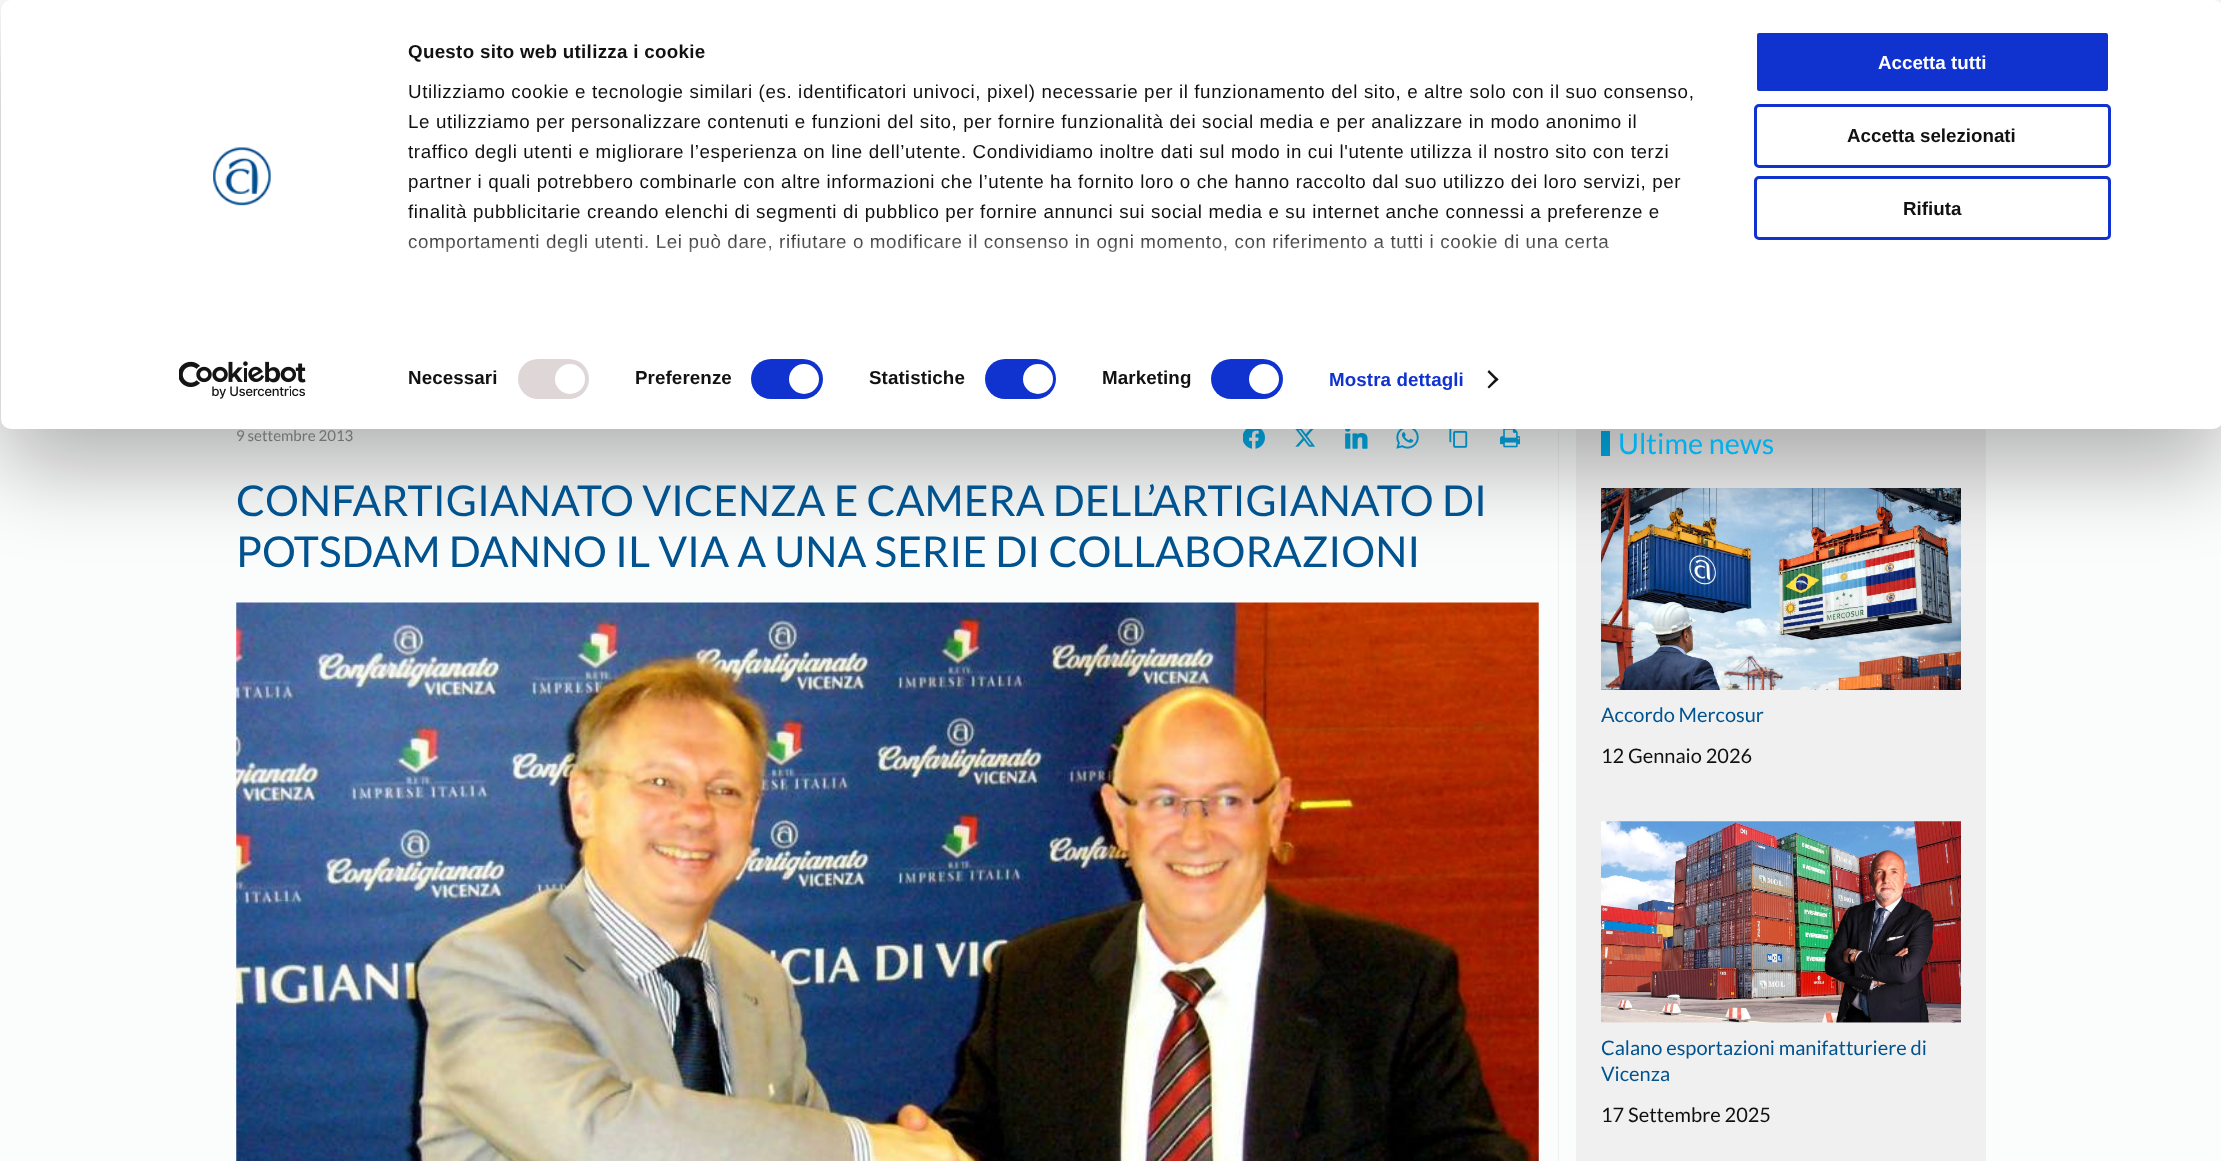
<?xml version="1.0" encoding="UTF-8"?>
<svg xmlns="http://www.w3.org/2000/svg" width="2221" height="1161">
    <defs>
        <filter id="blur1" x="-50%" y="-200%" width="200%" height="500%"><feGaussianBlur stdDeviation="44"/></filter>
        <linearGradient id="g1" gradientUnits="userSpaceOnUse" x1="1051" y1="321" x2="1051" y2="228"><stop offset="0" stop-color="#FFFFFF"/><stop offset="0.5" stop-color="#FFFFFF" stop-opacity="0.8"/><stop offset="1" stop-color="#FFFFFF" stop-opacity="0"/></linearGradient>
    </defs>
    <rect width="100%" height="100%" fill="#FBFCFC"/>
    <image x="1243" y="429" width="22" height="20" href="img_03.png"/>
    <image x="1295" y="429" width="20" height="18" href="img_04.png"/>
    <image x="1345" y="429" width="23" height="20" href="img_05.png"/>
    <image x="1396" y="429" width="23" height="20" href="img_06.png"/>
    <image x="1449" y="429" width="19" height="19" href="img_07.png"/>
    <image x="1500" y="429" width="20" height="19" href="img_08.png"/>
    <rect x="1558" y="429" width="1" height="732" fill="#F0F0F0"/>
    <rect x="1576" y="429" width="410" height="732" fill="#F0F0F0"/>
    <rect x="1601" y="431" width="9" height="25" fill="#00AFEC"/>
    <image x="1601" y="488" width="360" height="202" href="img_10.png"/>
    <rect x="1" y="38" width="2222" height="428" rx="10" fill="#000000" fill-opacity="0.3" filter="url(#blur1)"/>
    <rect x="1" y="0" width="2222" height="429" rx="10" fill="#FFFFFF"/>
    <image x="213" y="147" width="58" height="59" href="img_01.png"/>
    <image x="179" y="361" width="127" height="38" href="img_02.png"/>
    <text x="408" y="58" font-family="Liberation Sans" font-size="18.75" font-weight="700" letter-spacing="0.3" fill="#111111">Questo sito web utilizza i cookie</text>
    <text font-family="Liberation Sans" font-size="18.75" letter-spacing="0.62" fill="#111111">
        <tspan x="408" y="98">Utilizziamo cookie e tecnologie similari (es. identificatori univoci, pixel) necessarie per il funzionamento del sito, e altre solo con il suo consenso,</tspan>
        <tspan x="408" y="128">Le utilizziamo per personalizzare contenuti e funzioni del sito, per fornire funzionalità dei social media e per analizzare in modo anonimo il</tspan>
        <tspan x="408" y="158">traffico degli utenti e migliorare l’esperienza on line dell’utente. Condividiamo inoltre dati sul modo in cui l'utente utilizza il nostro sito con terzi</tspan>
        <tspan x="408" y="188">partner i quali potrebbero combinarle con altre informazioni che l’utente ha fornito loro o che hanno raccolto dal suo utilizzo dei loro servizi, per</tspan>
        <tspan x="408" y="218">finalità pubblicitarie creando elenchi di segmenti di pubblico per fornire annunci sui social media e su internet anche connessi a preferenze e</tspan>
        <tspan x="408" y="248">comportamenti degli utenti. Lei può dare, rifiutare o modificare il consenso in ogni momento, con riferimento a tutti i cookie di una certa</tspan>
    </text>
    <rect x="409" y="234" width="1201" height="18" fill="url(#g1)"/>
    <text x="408" y="384" font-family="Liberation Sans" font-size="18.75" font-weight="700" letter-spacing="0.1" fill="#111111">Necessari</text>
    <rect x="518" y="359" width="71" height="40" rx="20" fill="#DFD7D7"/>
    <circle cx="570" cy="379" r="15" fill="#FFFFFF"/>
    <text x="635" y="384" font-family="Liberation Sans" font-size="18.75" font-weight="700" letter-spacing="0.1" fill="#111111">Preferenze</text>
    <rect x="751" y="359" width="72" height="40" rx="20" fill="#1032CF"/>
    <circle cx="804" cy="379" r="15" fill="#FFFFFF"/>
    <text x="869" y="384" font-family="Liberation Sans" font-size="18.75" font-weight="700" letter-spacing="0.1" fill="#111111">Statistiche</text>
    <rect x="985" y="359" width="71" height="40" rx="20" fill="#1032CF"/>
    <circle cx="1038" cy="379" r="15" fill="#FFFFFF"/>
    <text x="1102" y="384" font-family="Liberation Sans" font-size="18.75" font-weight="700" letter-spacing="0.1" fill="#111111">Marketing</text>
    <rect x="1211" y="359" width="72" height="40" rx="20" fill="#1032CF"/>
    <circle cx="1264" cy="379" r="15" fill="#FFFFFF"/>
    <text x="1329" y="386" font-family="Liberation Sans" font-size="18.75" font-weight="700" letter-spacing="0.1" fill="#1032CF">Mostra dettagli</text>
    <path d="M 1489 370 L 1498.5 379.5 L 1496.5 381 L 1487.5 372 Z" fill="#141414"/>
    <path d="M 1496.5 377.5 L 1498.5 379.5 L 1489 388.5 L 1487.5 387 Z" fill="#141414"/>
    <rect x="1755.5" y="31.5" width="354" height="61" rx="3.5" fill="#1032CF" stroke="#FFFFFF" stroke-width="3"/>
    <text x="1878" y="69" font-family="Liberation Sans" font-size="18.75" font-weight="700" fill="#FFFFFF">Accetta tutti</text>
    <rect x="1755.5" y="105.5" width="354" height="61" rx="3.5" fill="none" stroke="#1032CF" stroke-width="3"/>
    <text x="1847" y="142" font-family="Liberation Sans" font-size="18.75" font-weight="700" fill="#111111">Accetta selezionati</text>
    <rect x="1755.5" y="177.5" width="354" height="61" rx="3.5" fill="none" stroke="#1032CF" stroke-width="3"/>
    <text x="1903" y="215" font-family="Liberation Sans" font-size="18.75" font-weight="700" fill="#111111">Rifiuta</text>
    <text x="236" y="441" font-family="Lato" font-size="15" fill="#707070">9 settembre 2013</text>
    <text font-family="Lato" font-size="42.5" fill="#00538F">
        <tspan x="236" y="516">CONFARTIGIANATO VICENZA E CAMERA DELL’ARTIGIANATO DI</tspan>
        <tspan x="236" y="567">POTSDAM DANNO IL VIA A UNA SERIE DI COLLABORAZIONI</tspan>
    </text>
    <image x="236" y="602" width="1303" height="559" href="img_09.png"/>
    <text x="1618" y="454" font-family="Lato" font-size="28.75" fill="#00AFEC">Ultime news</text>
    <text x="1601" y="722" font-family="Lato" font-size="20" fill="#00538F">Accordo Mercosur</text>
    <text x="1601" y="763" font-family="Lato" font-size="20" fill="#111111">12 Gennaio 2026</text>
    <image x="1601" y="821" width="360" height="202" href="img_11.png"/>
    <text font-family="Lato" font-size="20" fill="#00538F">
        <tspan x="1601" y="1055">Calano esportazioni manifatturiere di</tspan>
        <tspan x="1601" y="1081">Vicenza</tspan>
    </text>
    <text x="1601" y="1122" font-family="Lato" font-size="20" fill="#111111">17 Settembre 2025</text>
</svg>
